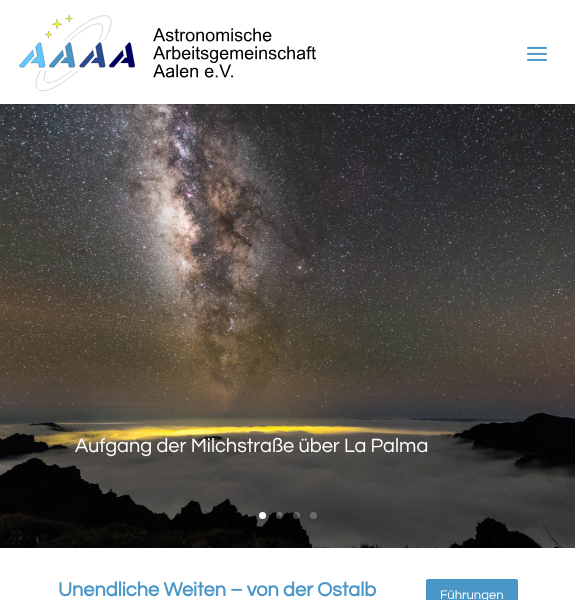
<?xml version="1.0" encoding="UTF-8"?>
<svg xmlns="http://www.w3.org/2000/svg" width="575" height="600">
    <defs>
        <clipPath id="clip1"><rect x="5" y="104" width="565" height="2"/></clipPath>
        <filter id="blur1" x="-50%" y="-200%" width="200%" height="500%"><feGaussianBlur stdDeviation="3"/></filter>
    </defs>
    <rect width="100%" height="100%" fill="#FFFFFF"/>
    <image x="0" y="104" width="575" height="444" href="img_03.png"/>
    <g clip-path="url(#clip1)">
        <rect x="6" y="10" width="563" height="92" fill="#000000" fill-opacity="0.3" filter="url(#blur1)"/>
    </g>
    <image x="19" y="15" width="297" height="77" href="img_01.png"/>
    <image x="527" y="46" width="20" height="15" href="img_02.png"/>
    <text x="75" y="452" font-family="Questrial" font-size="20" fill="#FFFFFF">Aufgang der Milchstraße über La Palma</text>
    <circle cx="262.5" cy="515.5" r="3.5" fill="#FFFFFF"/>
    <circle cx="279.5" cy="515.5" r="3.5" fill="#FFFFFF" fill-opacity="0.25"/>
    <circle cx="296.5" cy="515.5" r="3.5" fill="#FFFFFF" fill-opacity="0.25"/>
    <circle cx="313.5" cy="515.5" r="3.5" fill="#FFFFFF" fill-opacity="0.25"/>
    <text x="58" y="596" font-family="Questrial" font-size="20" font-weight="700" fill="#4A96C7">Unendliche Weiten – von der Ostalb</text>
    <rect x="426.5" y="579.5" width="91" height="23" rx="1.5" fill="#4A96C7" stroke="#4A96C7"/>
    <text x="440" y="599" font-family="Questrial" font-size="13" fill="#FFFFFF">Führungen</text>
</svg>
